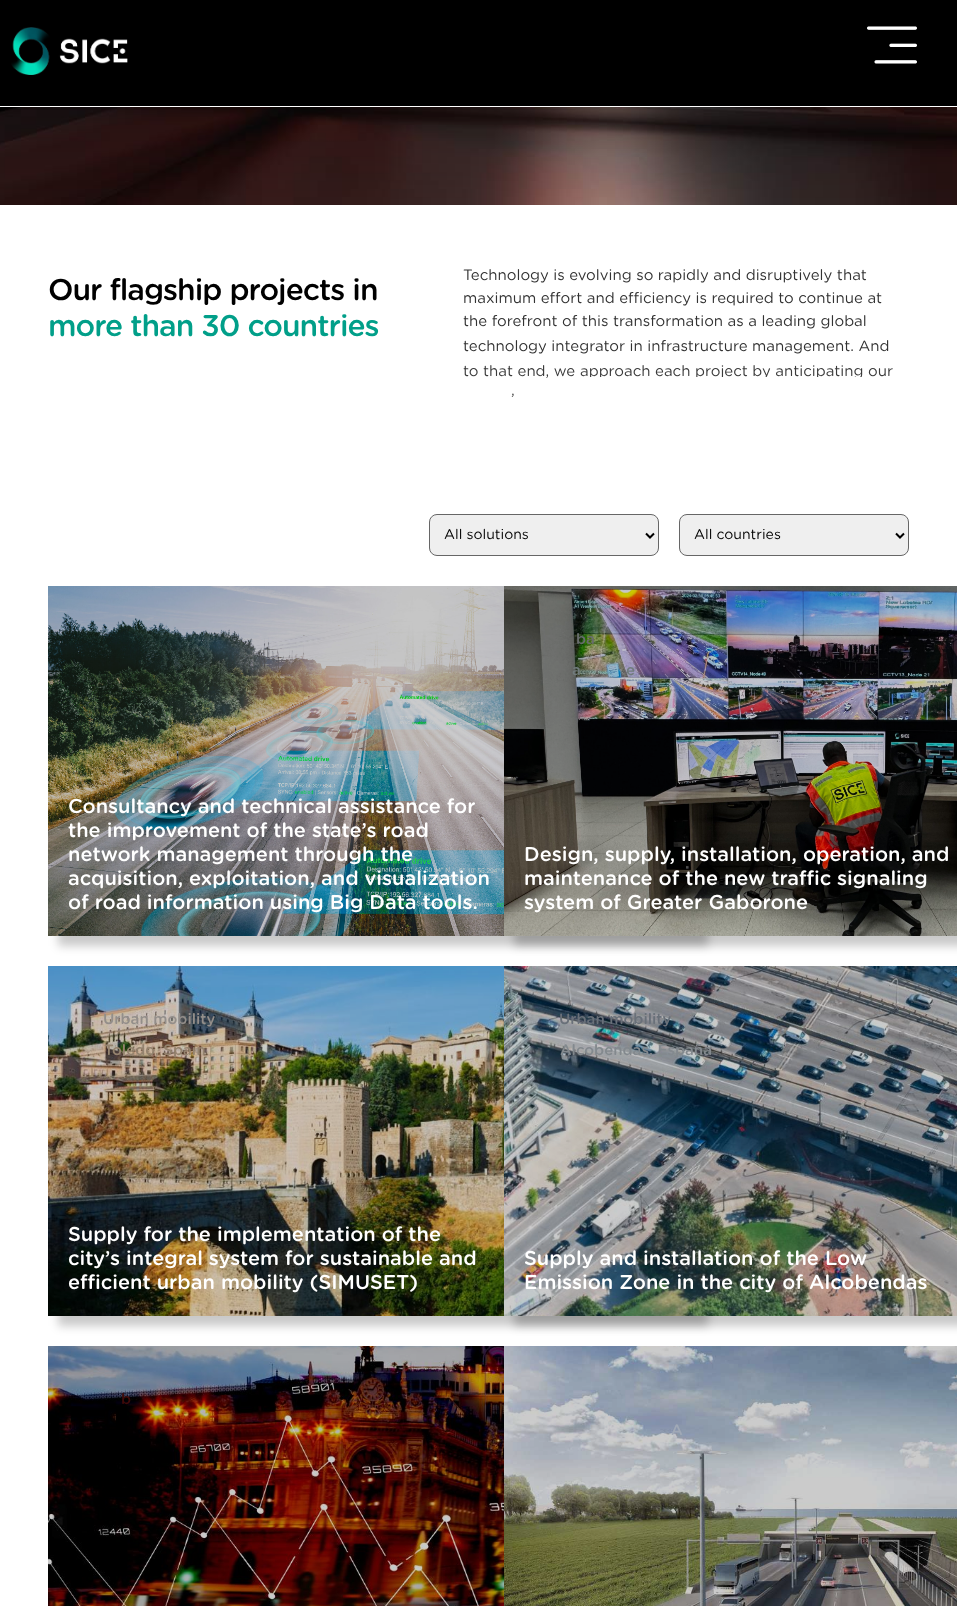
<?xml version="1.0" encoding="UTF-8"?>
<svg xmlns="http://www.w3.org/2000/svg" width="957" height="1606">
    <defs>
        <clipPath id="clip1"><rect x="463" y="361" width="446" height="16"/></clipPath>
        <filter id="blur1" x="-50%" y="-200%" width="200%" height="500%"><feGaussianBlur stdDeviation="5"/></filter>
    </defs>
    <rect width="100%" height="100%" fill="#FFFFFF"/>
    <rect x="0" y="0" width="957" height="106" fill="#000000"/>
    <image x="11" y="27" width="117" height="48" href="img_01.png"/>
    <image x="867" y="26" width="50" height="38" href="img_02.png"/>
    <image x="0" y="107" width="957" height="98" href="img_03.png"/>
    <text x="48" y="300" font-family="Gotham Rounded" font-size="30" font-weight="500" letter-spacing="-1" fill="#000000">Our flagship projects in</text>
    <text x="48" y="336" font-family="Gotham Rounded" font-size="30" font-weight="500" letter-spacing="-1" fill="#019F89">more than 30 countries</text>
    <text font-family="Gotham Rounded" font-size="15" fill="#333333">
        <tspan x="463" y="280">Technology is evolving so rapidly and disruptively that</tspan>
        <tspan x="463" y="303">maximum effort and efficiency is required to continue at</tspan>
        <tspan x="463" y="326">the forefront of this transformation as a leading global</tspan>
        <tspan x="463" y="351">technology integrator in infrastructure management. And</tspan>
    </text>
    <text x="463" y="376" font-family="Gotham Rounded" font-size="15" fill="#3B3B3B">to that end, we</text>
    <g clip-path="url(#clip1)">
        <text x="580" y="376" font-family="Gotham Rounded" font-size="15" fill="#3B3B3B">approach</text>
    </g>
    <text x="655" y="376" font-family="Gotham Rounded" font-size="15" fill="#3B3B3B">each</text>
    <g clip-path="url(#clip1)">
        <text x="695" y="376" font-family="Gotham Rounded" font-size="15" fill="#3B3B3B">project by anticipating</text>
    </g>
    <text x="868" y="376" font-family="Gotham Rounded" font-size="15" fill="#3B3B3B">our</text>
    <text x="511" y="404" font-family="Gotham Rounded" font-size="15" fill="#414141">’</text>
    <rect x="429.5" y="514.5" width="229" height="41" rx="7.5" fill="#EFEFEF" stroke="#666666"/>
    <path d="M 646 533.5 L 650 537.5 L 654 533.5" fill="none" stroke="#000000" stroke-width="2"/>
    <text x="444" y="539" font-family="Gotham Rounded" font-size="14" fill="#000000">All solutions</text>
    <rect x="679.5" y="514.5" width="229" height="41" rx="7.5" fill="#EFEFEF" stroke="#666666"/>
    <path d="M 896 533.5 L 900 537.5 L 904 533.5" fill="none" stroke="#000000" stroke-width="2"/>
    <text x="694" y="539" font-family="Gotham Rounded" font-size="14" fill="#000000">All countries</text>
    <rect x="58" y="596" width="650" height="350" fill="#000000" fill-opacity="0.21" filter="url(#blur1)"/>
    <image x="48" y="586" width="456" height="350" href="img_04.png"/>
    <text font-family="Gotham Rounded" font-size="20" font-weight="500" fill="#FFFFFF">
        <tspan x="68" y="813">Consultancy and technical assistance for</tspan>
        <tspan x="68" y="837">the improvement of the state’s road</tspan>
        <tspan x="68" y="861">network management through the</tspan>
        <tspan x="68" y="885">acquisition, exploitation, and visualization</tspan>
        <tspan x="68" y="909">of road information using Big Data tools.</tspan>
    </text>
    <rect x="514" y="596" width="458" height="350" fill="#000000" fill-opacity="0.21" filter="url(#blur1)"/>
    <image x="504" y="586" width="453" height="350" href="img_05.png"/>
    <text x="576" y="644" font-family="Gotham Rounded" font-size="15" font-weight="500" fill="#696D6E">ba</text>
    <text x="572" y="675" font-family="Gotham Rounded" font-size="15" font-weight="500" fill="#717C7D">a</text>
    <text x="626" y="675" font-family="Gotham Rounded" font-size="15" font-weight="500" fill="#717C7D">e</text>
    <text font-family="Gotham Rounded" font-size="20" font-weight="500" fill="#FFFFFF">
        <tspan x="524" y="861">Design, supply, installation, operation, and</tspan>
        <tspan x="524" y="885">maintenance of the new traffic signaling</tspan>
        <tspan x="524" y="909">system of Greater Gaborone</tspan>
    </text>
    <rect x="58" y="976" width="650" height="350" fill="#000000" fill-opacity="0.21" filter="url(#blur1)"/>
    <image x="48" y="966" width="456" height="350" href="img_06.png"/>
    <text x="103" y="1024" font-family="Gotham Rounded" font-size="15" font-weight="500" fill="#938E8A">Urban mobility</text>
    <text x="104" y="1055" font-family="Gotham Rounded" font-size="15" font-weight="500" fill="#94836E">Toledo, Spain</text>
    <text font-family="Gotham Rounded" font-size="20" font-weight="500" fill="#FFFFFF">
        <tspan x="68" y="1241">Supply for the implementation of the</tspan>
        <tspan x="68" y="1265">city’s integral system for sustainable and</tspan>
        <tspan x="68" y="1289">efficient urban mobility (SIMUSET)</tspan>
    </text>
    <rect x="514" y="976" width="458" height="350" fill="#000000" fill-opacity="0.21" filter="url(#blur1)"/>
    <image x="504" y="966" width="453" height="350" href="img_07.png"/>
    <text x="559" y="1024" font-family="Gotham Rounded" font-size="15" font-weight="500" fill="#697079">Urban mobility</text>
    <text x="560" y="1055" font-family="Gotham Rounded" font-size="15" font-weight="500" fill="#83898E">Alcobendas, España</text>
    <text font-family="Gotham Rounded" font-size="20" font-weight="500" fill="#FFFFFF">
        <tspan x="524" y="1265">Supply and installation of the Low</tspan>
        <tspan x="524" y="1289">Emission Zone in the city of Alcobendas</tspan>
    </text>
    <image x="48" y="1346" width="456" height="260" href="img_08.png"/>
    <text x="121" y="1404" font-family="Gotham Rounded" font-size="15" font-weight="500" fill="#3F0A09">b</text>
    <image x="504" y="1346" width="453" height="260" href="img_09.png"/>
    <text x="671" y="1435" font-family="Gotham Rounded" font-size="15" font-weight="500" fill="#A1A9B6">A</text>
</svg>
